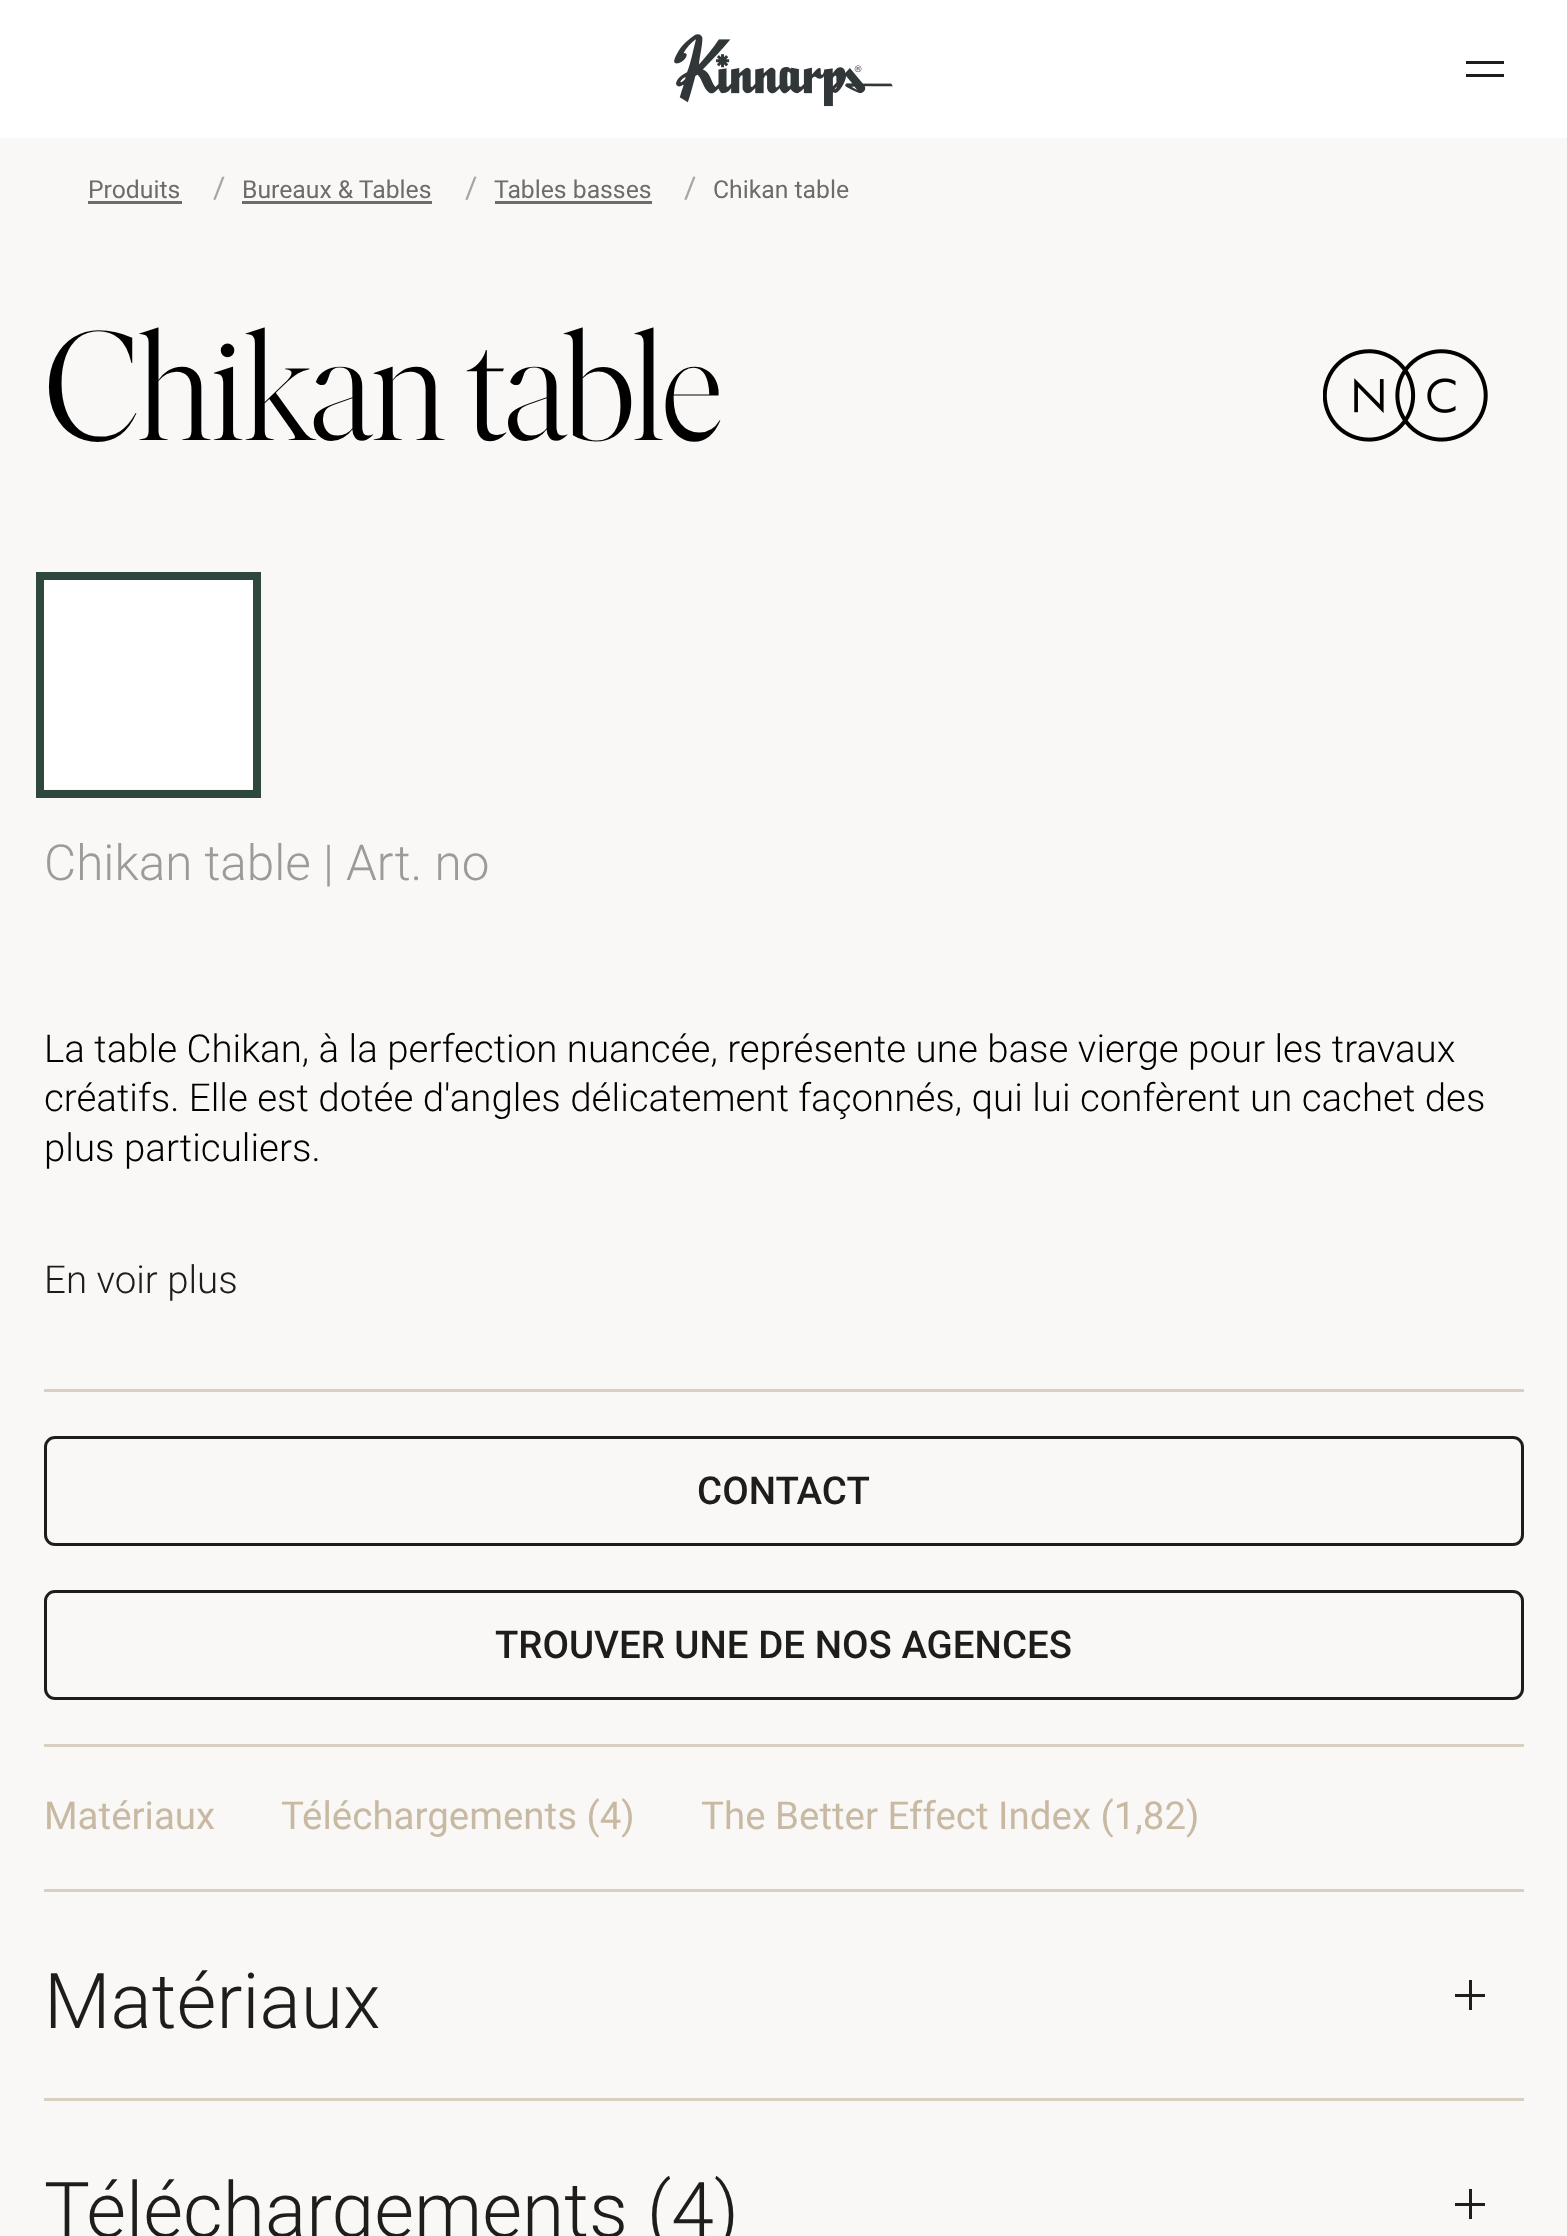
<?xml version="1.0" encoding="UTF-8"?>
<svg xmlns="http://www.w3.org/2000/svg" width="1567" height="2236">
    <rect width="100%" height="100%" fill="#FAF8F6"/>
    <rect x="0" y="0" width="1567" height="138" fill="#FFFFFF"/>
    <image x="674" y="34" width="219" height="73" href="img_01.png"/>
    <rect x="1466" y="61" width="38" height="3" fill="#1D1D1B"/>
    <rect x="1466" y="74" width="38" height="3" fill="#1D1D1B"/>
    <text x="88" y="198" font-family="Roboto" font-size="24.75" fill="#6E6B68">Produits</text>
    <rect x="88" y="201" width="94" height="3" fill="#6E6B68"/>
    <text x="213" y="198" font-family="Roboto" font-size="30" fill="#A2A6A8">/</text>
    <text x="242" y="198" font-family="Roboto" font-size="24.75" fill="#6E6B68">Bureaux &amp; Tables</text>
    <rect x="242" y="201" width="190" height="3" fill="#6E6B68"/>
    <text x="465" y="198" font-family="Roboto" font-size="30" fill="#A2A6A8">/</text>
    <text x="494" y="198" font-family="Roboto" font-size="24.75" fill="#6E6B68">Tables basses</text>
    <rect x="495" y="201" width="157" height="3" fill="#6E6B68"/>
    <text x="684" y="198" font-family="Roboto" font-size="30" fill="#A2A6A8">/</text>
    <text x="713" y="198" font-family="Roboto" font-size="24.75" fill="#6E6B68">Chikan table</text>
    <text x="44" y="440" font-family="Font" font-size="154" font-weight="300" fill="#000000">Chikan table</text>
    <image x="1323" y="349" width="165" height="93" href="img_02.png"/>
    <rect x="44" y="580" width="209" height="209" fill="#FFFFFF"/>
    <rect x="40" y="576" width="217" height="218" fill="none" stroke="#2E483E" stroke-width="8"/>
    <text x="44" y="880" font-family="Roboto" font-size="49.5" font-weight="300" fill="#9D9B99">Chikan table | Art. no</text>
    <text font-family="Roboto" font-size="38.5" font-weight="300" fill="#000000">
        <tspan x="44" y="1062">La table Chikan, à la perfection nuancée, représente une base vierge pour les travaux</tspan>
        <tspan x="44" y="1111">créatifs. Elle est dotée d'angles délicatement façonnés, qui lui confèrent un cachet des</tspan>
        <tspan x="44" y="1161">plus particuliers.</tspan>
    </text>
    <text x="44" y="1293" font-family="Roboto" font-size="38.5" font-weight="300" fill="#1D1D1B">En voir plus</text>
    <rect x="44" y="1389" width="1480" height="3" fill="#DAD0C1"/>
    <rect x="44" y="1744" width="1480" height="3" fill="#DAD0C1"/>
    <rect x="45.5" y="1437.5" width="1477" height="107" rx="9.5" fill="none" stroke="#1D1D1B" stroke-width="3"/>
    <text x="697" y="1504" font-family="Roboto" font-size="38.5" font-weight="500" fill="#1D1D1B">CONTACT</text>
    <rect x="45.5" y="1591.5" width="1477" height="107" rx="9.5" fill="none" stroke="#1D1D1B" stroke-width="3"/>
    <text x="495" y="1658" font-family="Roboto" font-size="38.5" font-weight="500" fill="#1D1D1B">TROUVER UNE DE NOS AGENCES</text>
    <text x="44" y="1829" font-family="Roboto" font-size="38.5" fill="#C8B9A3">Matériaux</text>
    <text x="281" y="1829" font-family="Roboto" font-size="38.5" fill="#C8B9A3">Téléchargements (4)</text>
    <text x="701" y="1829" font-family="Roboto" font-size="38.5" fill="#C8B9A3">The Better Effect Index (1,82)</text>
    <rect x="44" y="1889" width="1480" height="3" fill="#DAD0C1"/>
    <text x="44" y="2028" font-family="Roboto" font-size="77" font-weight="300" fill="#1D1D1B">Matériaux</text>
    <rect x="1455" y="1994" width="30" height="3" fill="#1D1D1B"/>
    <rect x="1469" y="1980" width="3" height="30" fill="#1D1D1B"/>
    <rect x="44" y="2098" width="1480" height="3" fill="#DAD0C1"/>
    <text x="44" y="2237" font-family="Roboto" font-size="77" font-weight="300" fill="#1D1D1B">Téléchargements (4)</text>
    <rect x="1455" y="2203" width="30" height="3" fill="#1D1D1B"/>
    <rect x="1469" y="2189" width="3" height="30" fill="#1D1D1B"/>
</svg>
